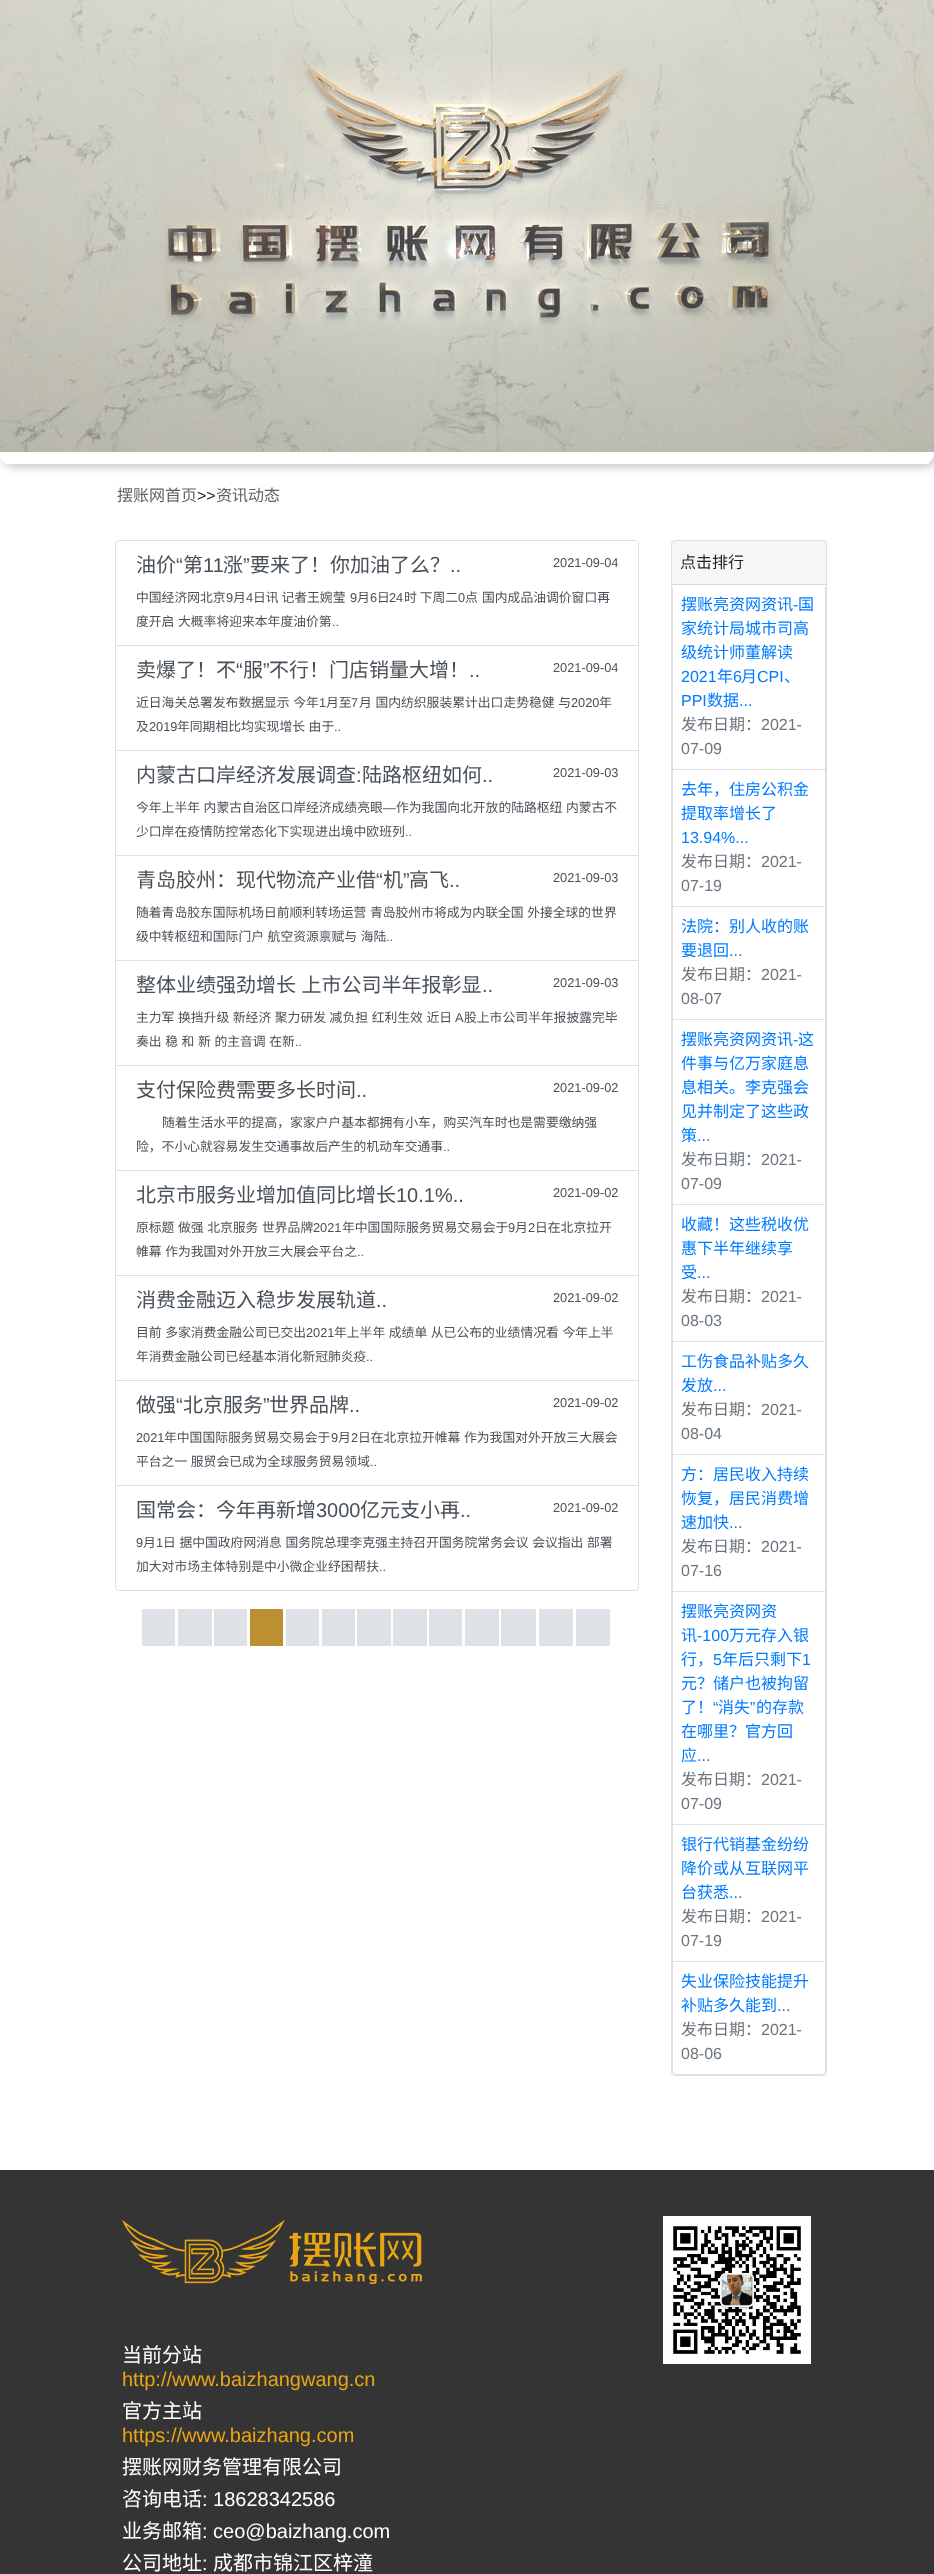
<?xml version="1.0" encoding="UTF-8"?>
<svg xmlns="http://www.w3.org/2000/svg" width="934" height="2574">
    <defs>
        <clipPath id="clip1"><path d="M 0 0 H 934 V 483 H 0 Z M 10 -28 H 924 C 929.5 -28 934 -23.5 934 -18 V 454 C 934 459.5 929.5 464 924 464 H 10 C 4.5 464 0 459.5 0 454 V -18 C 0 -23.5 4.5 -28 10 -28 Z" clip-rule="evenodd"/></clipPath>
        <filter id="blur1" x="-50%" y="-200%" width="200%" height="500%"><feGaussianBlur stdDeviation="5"/></filter>
    </defs>
    <rect width="100%" height="100%" fill="#FFFFFF"/>
    <rect x="672" y="587" width="1" height="183" fill="#E0E0E0"/>
    <rect x="672" y="769" width="154" height="1" fill="#E0E0E0"/>
    <rect x="672" y="769" width="1" height="1" fill="#C5C5C5"/>
    <g clip-path="url(#clip1)">
        <rect x="3" y="-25" width="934" height="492" rx="10" fill="#C4C4C4" filter="url(#blur1)"/>
    </g>
    <rect x="5" y="462" width="924" height="2" fill="#FFFFFF"/>
    <image x="0" y="0" width="934" height="452" href="img_01.png"/>
    <text x="117" y="501" font-family="Noto Sans CJK SC" font-size="16" fill="#636363">摆账网首页</text>
    <text x="197" y="501" font-family="Liberation Sans" font-size="16" fill="#212529">&gt;&gt;</text>
    <text x="216" y="501" font-family="Noto Sans CJK SC" font-size="16" fill="#636363">资讯动态</text>
    <path d="M 119 540.5 H 635 C 637 540.5 638.5 542 638.5 544 V 645.5 H 115.5 V 544 C 115.5 542 117 540.5 119 540.5 Z" fill="none" stroke="#DFDFDF"/>
    <text x="136" y="572" font-family="Noto Sans CJK SC" font-size="20" fill="#495057">油价</text>
    <text x="176" y="572" font-family="Liberation Sans" font-size="20" fill="#495057">“</text>
    <text x="183" y="572" font-family="Noto Sans CJK SC" font-size="20" fill="#495057">第</text>
    <text x="203" y="572" font-family="Liberation Sans" font-size="20" fill="#495057">11</text>
    <text x="223" y="572" font-family="Noto Sans CJK SC" font-size="20" fill="#495057">涨</text>
    <text x="243" y="572" font-family="Liberation Sans" font-size="20" fill="#495057">”</text>
    <text x="250" y="572" font-family="Noto Sans CJK SC" font-size="20" fill="#495057">要来了！你加油了么？</text>
    <text x="450" y="572" font-family="Liberation Sans" font-size="20" fill="#495057">..</text>
    <text x="553" y="567" font-family="Liberation Sans" font-size="12.8" fill="#495057">2021-09-04</text>
    <text x="136" y="602" font-family="Noto Sans CJK SC" font-size="12.8" fill="#495057">中国经济网北京</text>
    <text x="226" y="602" font-family="Liberation Sans" font-size="12.8" fill="#495057">9</text>
    <text x="233" y="602" font-family="Noto Sans CJK SC" font-size="12.8" fill="#495057">月</text>
    <text x="246" y="602" font-family="Liberation Sans" font-size="12.8" fill="#495057">4</text>
    <text x="253" y="602" font-family="Noto Sans CJK SC" font-size="12.8" fill="#495057">日讯 记者王婉莹</text>
    <text x="350" y="602" font-family="Liberation Sans" font-size="12.8" fill="#495057">9</text>
    <text x="357" y="602" font-family="Noto Sans CJK SC" font-size="12.8" fill="#495057">月</text>
    <text x="370" y="602" font-family="Liberation Sans" font-size="12.8" fill="#495057">6</text>
    <text x="377" y="602" font-family="Noto Sans CJK SC" font-size="12.8" fill="#495057">日</text>
    <text x="389" y="602" font-family="Liberation Sans" font-size="12.8" fill="#495057">24</text>
    <text x="404" y="602" font-family="Noto Sans CJK SC" font-size="12.8" fill="#495057">时 下周二</text>
    <text x="458" y="602" font-family="Liberation Sans" font-size="12.8" fill="#495057">0</text>
    <text x="465" y="602" font-family="Noto Sans CJK SC" font-size="12.8" fill="#495057">点</text>
    <text x="482" y="602" font-family="Noto Sans CJK SC" font-size="12.8" fill="#495057">国内成品油调价窗口再</text>
    <text x="136" y="626" word-spacing="0.75" font-family="Noto Sans CJK SC" font-size="12.8" fill="#495057">度开启 大概率将迎来本年度油价第</text>
    <text x="332" y="626" font-family="Liberation Sans" font-size="12.8" fill="#495057">..</text>
    <path d="M 639 646 V 751 L 638 750 V 646 Z" fill="#DFDFDF"/>
    <path d="M 639 751 H 115 L 116 750 H 638 Z" fill="#000000" fill-opacity="0.12"/>
    <path d="M 115 751 V 646 H 116 V 750 Z" fill="#000000" fill-opacity="0.12"/>
    <text x="136" y="677" font-family="Noto Sans CJK SC" font-size="20" fill="#495057">卖爆了！不</text>
    <text x="236" y="677" font-family="Liberation Sans" font-size="20" fill="#495057">“</text>
    <text x="243" y="677" font-family="Noto Sans CJK SC" font-size="20" fill="#495057">服</text>
    <text x="263" y="677" font-family="Liberation Sans" font-size="20" fill="#495057">”</text>
    <text x="269" y="677" font-family="Noto Sans CJK SC" font-size="20" fill="#495057">不行！门店销量大增！</text>
    <text x="469" y="677" font-family="Liberation Sans" font-size="20" fill="#495057">..</text>
    <text x="553" y="672" font-family="Liberation Sans" font-size="12.8" fill="#495057">2021-09-04</text>
    <text x="136" y="707" word-spacing="0.75" font-family="Noto Sans CJK SC" font-size="12.8" fill="#495057">近日海关总署发布数据显示 今年</text>
    <text x="319" y="707" font-family="Liberation Sans" font-size="12.8" fill="#495057">1</text>
    <text x="326" y="707" font-family="Noto Sans CJK SC" font-size="12.8" fill="#495057">月至</text>
    <text x="351" y="707" font-family="Liberation Sans" font-size="12.8" fill="#495057">7</text>
    <text x="359" y="707" word-spacing="0.75" font-family="Noto Sans CJK SC" font-size="12.8" fill="#495057">月 国内纺织服装累计出口走势稳健 与</text>
    <text x="571" y="707" font-family="Liberation Sans" font-size="12.8" fill="#495057">2020</text>
    <text x="599" y="707" font-family="Noto Sans CJK SC" font-size="12.8" fill="#495057">年</text>
    <text x="136" y="731" font-family="Noto Sans CJK SC" font-size="12.8" fill="#495057">及</text>
    <text x="149" y="731" font-family="Liberation Sans" font-size="12.8" fill="#495057">2019</text>
    <text x="177" y="731" word-spacing="0.75" font-family="Noto Sans CJK SC" font-size="12.8" fill="#495057">年同期相比均实现增长 由于</text>
    <text x="334" y="731" font-family="Liberation Sans" font-size="12.8" fill="#495057">..</text>
    <path d="M 639 751 V 856 L 638 855 V 751 Z" fill="#DFDFDF"/>
    <path d="M 639 856 H 115 L 116 855 H 638 Z" fill="#000000" fill-opacity="0.12"/>
    <path d="M 115 856 V 751 H 116 V 855 Z" fill="#000000" fill-opacity="0.12"/>
    <text x="136" y="782" font-family="Noto Sans CJK SC" font-size="20" fill="#495057">内蒙古口岸经济发展调查</text>
    <text x="356" y="782" font-family="Liberation Sans" font-size="20" fill="#495057">:</text>
    <text x="362" y="782" font-family="Noto Sans CJK SC" font-size="20" fill="#495057">陆路枢纽如何</text>
    <text x="482" y="782" font-family="Liberation Sans" font-size="20" fill="#495057">..</text>
    <text x="553" y="777" font-family="Liberation Sans" font-size="12.8" fill="#495057">2021-09-03</text>
    <text x="136" y="812" word-spacing="0.75" font-family="Noto Sans CJK SC" font-size="12.8" fill="#495057">今年上半年 内蒙古自治区口岸经济成绩亮眼</text>
    <text x="383" y="812" font-family="Liberation Sans" font-size="12.8" fill="#495057">—</text>
    <text x="396" y="812" word-spacing="0.75" font-family="Noto Sans CJK SC" font-size="12.8" fill="#495057">作为我国向北开放的陆路枢纽 内蒙古不</text>
    <text x="136" y="836" font-family="Noto Sans CJK SC" font-size="12.8" fill="#495057">少口岸在疫情防控常态化下实现进出境中欧班列</text>
    <text x="405" y="836" font-family="Liberation Sans" font-size="12.8" fill="#495057">..</text>
    <path d="M 639 856 V 961 L 638 960 V 856 Z" fill="#DFDFDF"/>
    <path d="M 639 961 H 115 L 116 960 H 638 Z" fill="#000000" fill-opacity="0.12"/>
    <path d="M 115 961 V 856 H 116 V 960 Z" fill="#000000" fill-opacity="0.12"/>
    <text x="136" y="887" font-family="Noto Sans CJK SC" font-size="20" fill="#495057">青岛胶州：现代物流产业借</text>
    <text x="376" y="887" font-family="Liberation Sans" font-size="20" fill="#495057">“</text>
    <text x="383" y="887" font-family="Noto Sans CJK SC" font-size="20" fill="#495057">机</text>
    <text x="403" y="887" font-family="Liberation Sans" font-size="20" fill="#495057">”</text>
    <text x="409" y="887" font-family="Noto Sans CJK SC" font-size="20" fill="#495057">高飞</text>
    <text x="449" y="887" font-family="Liberation Sans" font-size="20" fill="#495057">..</text>
    <text x="553" y="882" font-family="Liberation Sans" font-size="12.8" fill="#495057">2021-09-03</text>
    <text font-family="Noto Sans CJK SC" font-size="12.8" fill="#495057">
        <tspan x="136" y="917" word-spacing="0.75">随着青岛胶东国际机场日前顺利转场运营 青岛胶州市将成为内联全国 外接全球的世界</tspan>
        <tspan x="136" y="941" word-spacing="0.75">级中转枢纽和国际门户 航空资源禀赋与 海陆</tspan>
    </text>
    <text x="386" y="941" font-family="Liberation Sans" font-size="12.8" fill="#495057">..</text>
    <path d="M 639 961 V 1066 L 638 1065 V 961 Z" fill="#DFDFDF"/>
    <path d="M 639 1066 H 115 L 116 1065 H 638 Z" fill="#000000" fill-opacity="0.12"/>
    <path d="M 115 1066 V 961 H 116 V 1065 Z" fill="#000000" fill-opacity="0.12"/>
    <text x="136" y="992" word-spacing="1" font-family="Noto Sans CJK SC" font-size="20" fill="#495057">整体业绩强劲增长 上市公司半年报彰显</text>
    <text x="482" y="992" font-family="Liberation Sans" font-size="20" fill="#495057">..</text>
    <text x="553" y="987" font-family="Liberation Sans" font-size="12.8" fill="#495057">2021-09-03</text>
    <text x="136" y="1022" word-spacing="0.75" font-family="Noto Sans CJK SC" font-size="12.8" fill="#495057">主力军 换挡升级 新经济 聚力研发 减负担 红利生效 近日</text>
    <text x="455" y="1022" font-family="Liberation Sans" font-size="12.8" fill="#495057">A</text>
    <text x="464" y="1022" font-family="Noto Sans CJK SC" font-size="12.8" fill="#495057">股上市公司半年报披露完毕</text>
    <text x="136" y="1046" word-spacing="0.75" font-family="Noto Sans CJK SC" font-size="12.8" fill="#495057">奏出 稳 和 新 的主音调 在新</text>
    <text x="295" y="1046" font-family="Liberation Sans" font-size="12.8" fill="#495057">..</text>
    <path d="M 639 1066 V 1171 L 638 1170 V 1066 Z" fill="#DFDFDF"/>
    <path d="M 639 1171 H 115 L 116 1170 H 638 Z" fill="#000000" fill-opacity="0.12"/>
    <path d="M 115 1171 V 1066 H 116 V 1170 Z" fill="#000000" fill-opacity="0.12"/>
    <text x="136" y="1097" font-family="Noto Sans CJK SC" font-size="20" fill="#495057">支付保险费需要多长时间</text>
    <text x="356" y="1097" font-family="Liberation Sans" font-size="20" fill="#495057">..</text>
    <text x="553" y="1092" font-family="Liberation Sans" font-size="12.8" fill="#495057">2021-09-02</text>
    <text x="162" y="1127" font-family="Noto Sans CJK SC" font-size="12.8" fill="#495057">随着生活水平的提高，家家户户基本都拥有小车，购买汽车时也是需要缴纳强</text>
    <text x="136" y="1151" font-family="Noto Sans CJK SC" font-size="12.8" fill="#495057">险，不小心就容易发生交通事故后产生的机动车交通事</text>
    <text x="443" y="1151" font-family="Liberation Sans" font-size="12.8" fill="#495057">..</text>
    <path d="M 639 1171 V 1276 L 638 1275 V 1171 Z" fill="#DFDFDF"/>
    <path d="M 639 1276 H 115 L 116 1275 H 638 Z" fill="#000000" fill-opacity="0.12"/>
    <path d="M 115 1276 V 1171 H 116 V 1275 Z" fill="#000000" fill-opacity="0.12"/>
    <text x="136" y="1202" font-family="Noto Sans CJK SC" font-size="20" fill="#495057">北京市服务业增加值同比增长</text>
    <text x="396" y="1202" font-family="Liberation Sans" font-size="20" fill="#495057">10.1%..</text>
    <text x="553" y="1197" font-family="Liberation Sans" font-size="12.8" fill="#495057">2021-09-02</text>
    <text x="136" y="1232" word-spacing="0.75" font-family="Noto Sans CJK SC" font-size="12.8" fill="#495057">原标题 做强 北京服务 世界品牌</text>
    <text x="313" y="1232" font-family="Liberation Sans" font-size="12.8" fill="#495057">2021</text>
    <text x="342" y="1232" font-family="Noto Sans CJK SC" font-size="12.8" fill="#495057">年中国国际服务贸易交易会于</text>
    <text x="508" y="1232" font-family="Liberation Sans" font-size="12.8" fill="#495057">9</text>
    <text x="515" y="1232" font-family="Noto Sans CJK SC" font-size="12.8" fill="#495057">月</text>
    <text x="528" y="1232" font-family="Liberation Sans" font-size="12.8" fill="#495057">2</text>
    <text x="535" y="1232" font-family="Noto Sans CJK SC" font-size="12.8" fill="#495057">日在北京拉开</text>
    <text x="136" y="1256" word-spacing="0.75" font-family="Noto Sans CJK SC" font-size="12.8" fill="#495057">帷幕 作为我国对外开放三大展会平台之</text>
    <text x="357" y="1256" font-family="Liberation Sans" font-size="12.8" fill="#495057">..</text>
    <path d="M 639 1276 V 1381 L 638 1380 V 1276 Z" fill="#DFDFDF"/>
    <path d="M 639 1381 H 115 L 116 1380 H 638 Z" fill="#000000" fill-opacity="0.12"/>
    <path d="M 115 1381 V 1276 H 116 V 1380 Z" fill="#000000" fill-opacity="0.12"/>
    <text x="136" y="1307" font-family="Noto Sans CJK SC" font-size="20" fill="#495057">消费金融迈入稳步发展轨道</text>
    <text x="376" y="1307" font-family="Liberation Sans" font-size="20" fill="#495057">..</text>
    <text x="553" y="1302" font-family="Liberation Sans" font-size="12.8" fill="#495057">2021-09-02</text>
    <text x="136" y="1337" word-spacing="0.75" font-family="Noto Sans CJK SC" font-size="12.8" fill="#495057">目前 多家消费金融公司已交出</text>
    <text x="306" y="1337" font-family="Liberation Sans" font-size="12.8" fill="#495057">2021</text>
    <text x="334" y="1337" word-spacing="0.75" font-family="Noto Sans CJK SC" font-size="12.8" fill="#495057">年上半年 成绩单 从已公布的业绩情况看 今年上半</text>
    <text x="136" y="1361" font-family="Noto Sans CJK SC" font-size="12.8" fill="#495057">年消费金融公司已经基本消化新冠肺炎疫</text>
    <text x="366" y="1361" font-family="Liberation Sans" font-size="12.8" fill="#495057">..</text>
    <path d="M 639 1381 V 1486 L 638 1485 V 1381 Z" fill="#DFDFDF"/>
    <path d="M 639 1486 H 115 L 116 1485 H 638 Z" fill="#000000" fill-opacity="0.12"/>
    <path d="M 115 1486 V 1381 H 116 V 1485 Z" fill="#000000" fill-opacity="0.12"/>
    <text x="136" y="1412" font-family="Noto Sans CJK SC" font-size="20" fill="#495057">做强</text>
    <text x="176" y="1412" font-family="Liberation Sans" font-size="20" fill="#495057">“</text>
    <text x="183" y="1412" font-family="Noto Sans CJK SC" font-size="20" fill="#495057">北京服务</text>
    <text x="263" y="1412" font-family="Liberation Sans" font-size="20" fill="#495057">”</text>
    <text x="269" y="1412" font-family="Noto Sans CJK SC" font-size="20" fill="#495057">世界品牌</text>
    <text x="349" y="1412" font-family="Liberation Sans" font-size="20" fill="#495057">..</text>
    <text x="553" y="1407" font-family="Liberation Sans" font-size="12.8" fill="#495057">2021-09-02</text>
    <text x="136" y="1442" font-family="Liberation Sans" font-size="12.8" fill="#495057">2021</text>
    <text x="164" y="1442" font-family="Noto Sans CJK SC" font-size="12.8" fill="#495057">年中国国际服务贸易交易会于</text>
    <text x="331" y="1442" font-family="Liberation Sans" font-size="12.8" fill="#495057">9</text>
    <text x="338" y="1442" font-family="Noto Sans CJK SC" font-size="12.8" fill="#495057">月</text>
    <text x="351" y="1442" font-family="Liberation Sans" font-size="12.8" fill="#495057">2</text>
    <text x="358" y="1442" word-spacing="0.75" font-family="Noto Sans CJK SC" font-size="12.8" fill="#495057">日在北京拉开帷幕 作为我国对外开放三大展会</text>
    <text x="136" y="1466" word-spacing="0.75" font-family="Noto Sans CJK SC" font-size="12.8" fill="#495057">平台之一 服贸会已成为全球服务贸易领域</text>
    <text x="370" y="1466" font-family="Liberation Sans" font-size="12.8" fill="#495057">..</text>
    <path d="M 115 1486 H 639 V 1587 C 639 1589 637 1591 635 1591 H 119 C 117 1591 115 1589 115 1587 Z M 116 1486 H 638 V 1587 C 638 1589 637 1590 635 1590 H 119 C 117 1590 116 1589 116 1587 Z" fill="#DFDFDF" fill-rule="evenodd"/>
    <text x="136" y="1517" font-family="Noto Sans CJK SC" font-size="20" fill="#495057">国常会：今年再新增</text>
    <text x="316" y="1517" font-family="Liberation Sans" font-size="20" fill="#495057">3000</text>
    <text x="360" y="1517" font-family="Noto Sans CJK SC" font-size="20" fill="#495057">亿元支小再</text>
    <text x="460" y="1517" font-family="Liberation Sans" font-size="20" fill="#495057">..</text>
    <text x="553" y="1512" font-family="Liberation Sans" font-size="12.8" fill="#495057">2021-09-02</text>
    <text x="136" y="1547" font-family="Liberation Sans" font-size="12.8" fill="#495057">9</text>
    <text x="143" y="1547" font-family="Noto Sans CJK SC" font-size="12.8" fill="#495057">月</text>
    <text x="156" y="1547" font-family="Liberation Sans" font-size="12.8" fill="#495057">1</text>
    <text x="163" y="1547" word-spacing="0.75" font-family="Noto Sans CJK SC" font-size="12.8" fill="#495057">日 据中国政府网消息 国务院总理李克强主持召开国务院常务会议 会议指出 部署</text>
    <text x="136" y="1571" font-family="Noto Sans CJK SC" font-size="12.8" fill="#495057">加大对市场主体特别是中小微企业纾困帮扶</text>
    <text x="379" y="1571" font-family="Liberation Sans" font-size="12.8" fill="#495057">..</text>
    <rect x="142" y="1609" width="33" height="37" rx="0.5" fill="#DEE2E6"/>
    <rect x="178" y="1609" width="34" height="37" rx="0.5" fill="#DEE2E6"/>
    <rect x="214" y="1609" width="33" height="37" rx="0.5" fill="#DEE2E6"/>
    <rect x="250" y="1609" width="33" height="37" rx="0.5" fill="#BB8F32"/>
    <rect x="286" y="1609" width="33" height="37" rx="0.5" fill="#DEE2E6"/>
    <rect x="322" y="1609" width="33" height="37" rx="0.5" fill="#DEE2E6"/>
    <rect x="357" y="1609" width="34" height="37" rx="0.5" fill="#DEE2E6"/>
    <rect x="393" y="1609" width="34" height="37" rx="0.5" fill="#DEE2E6"/>
    <rect x="429" y="1609" width="33" height="37" rx="0.5" fill="#DEE2E6"/>
    <rect x="465" y="1609" width="34" height="37" rx="0.5" fill="#DEE2E6"/>
    <rect x="501" y="1609" width="35" height="37" rx="0.5" fill="#DEE2E6"/>
    <rect x="539" y="1609" width="34" height="37" rx="0.5" fill="#DEE2E6"/>
    <rect x="576" y="1609" width="34" height="37" rx="0.5" fill="#DEE2E6"/>
    <rect x="671.5" y="540.5" width="155" height="1535" rx="3.5" fill="none" stroke="#DFDFDF"/>
    <rect x="672" y="541" width="154" height="43" fill="#000000" fill-opacity="0.03"/>
    <rect x="672" y="584" width="154" height="1" fill="#D8D8D8"/>
    <text x="680" y="568" font-family="Noto Sans CJK SC" font-size="16" fill="#212529">点击排行</text>
    <rect x="825" y="587" width="1" height="183" fill="#DFDFDF"/>
    <rect x="825" y="769" width="1" height="1" fill="#C4C4C4"/>
    <text x="681" y="610" font-family="Noto Sans CJK SC" font-size="16" fill="#007BFF">摆账亮资网资讯</text>
    <text x="793" y="610" font-family="Liberation Sans" font-size="16" fill="#007BFF">-</text>
    <text x="798" y="610" font-family="Noto Sans CJK SC" font-size="16" fill="#007BFF">国</text>
    <text font-family="Noto Sans CJK SC" font-size="16" fill="#007BFF">
        <tspan x="681" y="634">家统计局城市司高</tspan>
        <tspan x="681" y="658">级统计师董解读</tspan>
    </text>
    <text x="681" y="682" font-family="Liberation Sans" font-size="16" fill="#007BFF">2021</text>
    <text x="717" y="682" font-family="Noto Sans CJK SC" font-size="16" fill="#007BFF">年</text>
    <text x="733" y="682" font-family="Liberation Sans" font-size="16" fill="#007BFF">6</text>
    <text x="741" y="682" font-family="Noto Sans CJK SC" font-size="16" fill="#007BFF">月</text>
    <text x="757" y="682" font-family="Liberation Sans" font-size="16" fill="#007BFF">CPI</text>
    <text x="784" y="682" font-family="Noto Sans CJK SC" font-size="16" fill="#007BFF">、</text>
    <text x="681" y="706" font-family="Liberation Sans" font-size="16" fill="#007BFF">PPI</text>
    <text x="707" y="706" font-family="Noto Sans CJK SC" font-size="16" fill="#007BFF">数据</text>
    <text x="739" y="706" font-family="Liberation Sans" font-size="16" fill="#007BFF">...</text>
    <text x="681" y="730" font-family="Noto Sans CJK SC" font-size="16" fill="#6C757D">发布日期：</text>
    <text x="761" y="730" font-family="Liberation Sans" font-size="16" fill="#6C757D">2021-</text>
    <text x="681" y="754" font-family="Liberation Sans" font-size="16" fill="#6C757D">07-09</text>
    <path d="M 826 770 V 907 L 825 906 V 770 Z" fill="#DFDFDF"/>
    <path d="M 826 907 H 672 L 673 906 H 825 Z" fill="#000000" fill-opacity="0.12"/>
    <path d="M 672 907 V 770 H 673 V 906 Z" fill="#000000" fill-opacity="0.12"/>
    <text font-family="Noto Sans CJK SC" font-size="16" fill="#007BFF">
        <tspan x="681" y="795">去年，住房公积金</tspan>
        <tspan x="681" y="819">提取率增长了</tspan>
    </text>
    <text x="681" y="843" font-family="Liberation Sans" font-size="16" fill="#007BFF">13.94%...</text>
    <text x="681" y="867" font-family="Noto Sans CJK SC" font-size="16" fill="#6C757D">发布日期：</text>
    <text x="761" y="867" font-family="Liberation Sans" font-size="16" fill="#6C757D">2021-</text>
    <text x="681" y="891" font-family="Liberation Sans" font-size="16" fill="#6C757D">07-19</text>
    <path d="M 826 907 V 1020 L 825 1019 V 907 Z" fill="#DFDFDF"/>
    <path d="M 826 1020 H 672 L 673 1019 H 825 Z" fill="#000000" fill-opacity="0.12"/>
    <path d="M 672 1020 V 907 H 673 V 1019 Z" fill="#000000" fill-opacity="0.12"/>
    <text font-family="Noto Sans CJK SC" font-size="16" fill="#007BFF">
        <tspan x="681" y="932">法院：别人收的账</tspan>
        <tspan x="681" y="956">要退回</tspan>
    </text>
    <text x="729" y="956" font-family="Liberation Sans" font-size="16" fill="#007BFF">...</text>
    <text x="681" y="980" font-family="Noto Sans CJK SC" font-size="16" fill="#6C757D">发布日期：</text>
    <text x="761" y="980" font-family="Liberation Sans" font-size="16" fill="#6C757D">2021-</text>
    <text x="681" y="1004" font-family="Liberation Sans" font-size="16" fill="#6C757D">08-07</text>
    <path d="M 826 1020 V 1205 L 825 1204 V 1020 Z" fill="#DFDFDF"/>
    <path d="M 826 1205 H 672 L 673 1204 H 825 Z" fill="#000000" fill-opacity="0.12"/>
    <path d="M 672 1205 V 1020 H 673 V 1204 Z" fill="#000000" fill-opacity="0.12"/>
    <text x="681" y="1045" font-family="Noto Sans CJK SC" font-size="16" fill="#007BFF">摆账亮资网资讯</text>
    <text x="793" y="1045" font-family="Liberation Sans" font-size="16" fill="#007BFF">-</text>
    <text x="798" y="1045" font-family="Noto Sans CJK SC" font-size="16" fill="#007BFF">这</text>
    <text font-family="Noto Sans CJK SC" font-size="16" fill="#007BFF">
        <tspan x="681" y="1069">件事与亿万家庭息</tspan>
        <tspan x="681" y="1093">息相关。李克强会</tspan>
        <tspan x="681" y="1117">见并制定了这些政</tspan>
        <tspan x="681" y="1141">策</tspan>
    </text>
    <text x="697" y="1141" font-family="Liberation Sans" font-size="16" fill="#007BFF">...</text>
    <text x="681" y="1165" font-family="Noto Sans CJK SC" font-size="16" fill="#6C757D">发布日期：</text>
    <text x="761" y="1165" font-family="Liberation Sans" font-size="16" fill="#6C757D">2021-</text>
    <text x="681" y="1189" font-family="Liberation Sans" font-size="16" fill="#6C757D">07-09</text>
    <path d="M 826 1205 V 1342 L 825 1341 V 1205 Z" fill="#DFDFDF"/>
    <path d="M 826 1342 H 672 L 673 1341 H 825 Z" fill="#000000" fill-opacity="0.12"/>
    <path d="M 672 1342 V 1205 H 673 V 1341 Z" fill="#000000" fill-opacity="0.12"/>
    <text font-family="Noto Sans CJK SC" font-size="16" fill="#007BFF">
        <tspan x="681" y="1230">收藏！这些税收优</tspan>
        <tspan x="681" y="1254">惠下半年继续享</tspan>
        <tspan x="681" y="1278">受</tspan>
    </text>
    <text x="697" y="1278" font-family="Liberation Sans" font-size="16" fill="#007BFF">...</text>
    <text x="681" y="1302" font-family="Noto Sans CJK SC" font-size="16" fill="#6C757D">发布日期：</text>
    <text x="761" y="1302" font-family="Liberation Sans" font-size="16" fill="#6C757D">2021-</text>
    <text x="681" y="1326" font-family="Liberation Sans" font-size="16" fill="#6C757D">08-03</text>
    <path d="M 826 1342 V 1455 L 825 1454 V 1342 Z" fill="#DFDFDF"/>
    <path d="M 826 1455 H 672 L 673 1454 H 825 Z" fill="#000000" fill-opacity="0.12"/>
    <path d="M 672 1455 V 1342 H 673 V 1454 Z" fill="#000000" fill-opacity="0.12"/>
    <text font-family="Noto Sans CJK SC" font-size="16" fill="#007BFF">
        <tspan x="681" y="1367">工伤食品补贴多久</tspan>
        <tspan x="681" y="1391">发放</tspan>
    </text>
    <text x="713" y="1391" font-family="Liberation Sans" font-size="16" fill="#007BFF">...</text>
    <text x="681" y="1415" font-family="Noto Sans CJK SC" font-size="16" fill="#6C757D">发布日期：</text>
    <text x="761" y="1415" font-family="Liberation Sans" font-size="16" fill="#6C757D">2021-</text>
    <text x="681" y="1439" font-family="Liberation Sans" font-size="16" fill="#6C757D">08-04</text>
    <path d="M 826 1455 V 1592 L 825 1591 V 1455 Z" fill="#DFDFDF"/>
    <path d="M 826 1592 H 672 L 673 1591 H 825 Z" fill="#000000" fill-opacity="0.12"/>
    <path d="M 672 1592 V 1455 H 673 V 1591 Z" fill="#000000" fill-opacity="0.12"/>
    <text font-family="Noto Sans CJK SC" font-size="16" fill="#007BFF">
        <tspan x="681" y="1480">方：居民收入持续</tspan>
        <tspan x="681" y="1504">恢复，居民消费增</tspan>
        <tspan x="681" y="1528">速加快</tspan>
    </text>
    <text x="729" y="1528" font-family="Liberation Sans" font-size="16" fill="#007BFF">...</text>
    <text x="681" y="1552" font-family="Noto Sans CJK SC" font-size="16" fill="#6C757D">发布日期：</text>
    <text x="761" y="1552" font-family="Liberation Sans" font-size="16" fill="#6C757D">2021-</text>
    <text x="681" y="1576" font-family="Liberation Sans" font-size="16" fill="#6C757D">07-16</text>
    <path d="M 826 1592 V 1825 L 825 1824 V 1592 Z" fill="#DFDFDF"/>
    <path d="M 826 1825 H 672 L 673 1824 H 825 Z" fill="#000000" fill-opacity="0.12"/>
    <path d="M 672 1825 V 1592 H 673 V 1824 Z" fill="#000000" fill-opacity="0.12"/>
    <text font-family="Noto Sans CJK SC" font-size="16" fill="#007BFF">
        <tspan x="681" y="1617">摆账亮资网资</tspan>
        <tspan x="681" y="1641">讯</tspan>
    </text>
    <text x="697" y="1641" font-family="Liberation Sans" font-size="16" fill="#007BFF">-100</text>
    <text x="729" y="1641" font-family="Noto Sans CJK SC" font-size="16" fill="#007BFF">万元存入银</text>
    <text x="681" y="1665" font-family="Noto Sans CJK SC" font-size="16" fill="#007BFF">行，</text>
    <text x="713" y="1665" font-family="Liberation Sans" font-size="16" fill="#007BFF">5</text>
    <text x="722" y="1665" font-family="Noto Sans CJK SC" font-size="16" fill="#007BFF">年后只剩下</text>
    <text x="802" y="1665" font-family="Liberation Sans" font-size="16" fill="#007BFF">1</text>
    <text font-family="Noto Sans CJK SC" font-size="16" fill="#007BFF">
        <tspan x="681" y="1689">元？储户也被拘留</tspan>
        <tspan x="681" y="1713">了！</tspan>
    </text>
    <text x="713" y="1713" font-family="Liberation Sans" font-size="16" fill="#007BFF">“</text>
    <text x="718" y="1713" font-family="Noto Sans CJK SC" font-size="16" fill="#007BFF">消失</text>
    <text x="750" y="1713" font-family="Liberation Sans" font-size="16" fill="#007BFF">”</text>
    <text x="756" y="1713" font-family="Noto Sans CJK SC" font-size="16" fill="#007BFF">的存款</text>
    <text font-family="Noto Sans CJK SC" font-size="16" fill="#007BFF">
        <tspan x="681" y="1737">在哪里？官方回</tspan>
        <tspan x="681" y="1761">应</tspan>
    </text>
    <text x="697" y="1761" font-family="Liberation Sans" font-size="16" fill="#007BFF">...</text>
    <text x="681" y="1785" font-family="Noto Sans CJK SC" font-size="16" fill="#6C757D">发布日期：</text>
    <text x="761" y="1785" font-family="Liberation Sans" font-size="16" fill="#6C757D">2021-</text>
    <text x="681" y="1809" font-family="Liberation Sans" font-size="16" fill="#6C757D">07-09</text>
    <path d="M 826 1825 V 1962 L 825 1961 V 1825 Z" fill="#DFDFDF"/>
    <path d="M 826 1962 H 672 L 673 1961 H 825 Z" fill="#000000" fill-opacity="0.12"/>
    <path d="M 672 1962 V 1825 H 673 V 1961 Z" fill="#000000" fill-opacity="0.12"/>
    <text font-family="Noto Sans CJK SC" font-size="16" fill="#007BFF">
        <tspan x="681" y="1850">银行代销基金纷纷</tspan>
        <tspan x="681" y="1874">降价或从互联网平</tspan>
        <tspan x="681" y="1898">台获悉</tspan>
    </text>
    <text x="729" y="1898" font-family="Liberation Sans" font-size="16" fill="#007BFF">...</text>
    <text x="681" y="1922" font-family="Noto Sans CJK SC" font-size="16" fill="#6C757D">发布日期：</text>
    <text x="761" y="1922" font-family="Liberation Sans" font-size="16" fill="#6C757D">2021-</text>
    <text x="681" y="1946" font-family="Liberation Sans" font-size="16" fill="#6C757D">07-19</text>
    <path d="M 672 1962 H 826 V 2071 C 826 2073 824 2075 822 2075 H 676 C 674 2075 672 2073 672 2071 Z M 673 1962 H 825 V 2071 C 825 2073 824 2074 822 2074 H 676 C 674 2074 673 2073 673 2071 Z" fill="#DFDFDF" fill-rule="evenodd"/>
    <text font-family="Noto Sans CJK SC" font-size="16" fill="#007BFF">
        <tspan x="681" y="1987">失业保险技能提升</tspan>
        <tspan x="681" y="2011">补贴多久能到</tspan>
    </text>
    <text x="777" y="2011" font-family="Liberation Sans" font-size="16" fill="#007BFF">...</text>
    <text x="681" y="2035" font-family="Noto Sans CJK SC" font-size="16" fill="#6C757D">发布日期：</text>
    <text x="761" y="2035" font-family="Liberation Sans" font-size="16" fill="#6C757D">2021-</text>
    <text x="681" y="2059" font-family="Liberation Sans" font-size="16" fill="#6C757D">08-06</text>
    <rect x="0" y="2170" width="934" height="404" fill="#343434"/>
    <image x="663" y="2216" width="148" height="148" href="img_02.png"/>
    <image x="122" y="2220" width="300" height="64" href="img_03.png"/>
    <text x="122" y="2362" font-family="Noto Sans CJK SC" font-size="20" fill="#FFFFFF">当前分站</text>
    <text x="122" y="2386" font-family="Liberation Sans" font-size="20" fill="#E9A614">http://www.baizhangwang.cn</text>
    <text x="122" y="2418" font-family="Noto Sans CJK SC" font-size="20" fill="#FFFFFF">官方主站</text>
    <text x="122" y="2442" font-family="Liberation Sans" font-size="20" fill="#E9A614">https://www.baizhang.com</text>
    <text font-family="Noto Sans CJK SC" font-size="20" fill="#FFFFFF">
        <tspan x="122" y="2474">摆账网财务管理有限公司</tspan>
        <tspan x="122" y="2506">咨询电话</tspan>
    </text>
    <text x="202" y="2506" font-family="Liberation Sans" font-size="20" fill="#FFFFFF">: 18628342586</text>
    <text x="122" y="2538" font-family="Noto Sans CJK SC" font-size="20" fill="#FFFFFF">业务邮箱</text>
    <text x="202" y="2538" font-family="Liberation Sans" font-size="20" fill="#FFFFFF">: ceo@baizhang.com</text>
    <text x="122" y="2570" font-family="Noto Sans CJK SC" font-size="20" fill="#FFFFFF">公司地址</text>
    <text x="202" y="2570" font-family="Liberation Sans" font-size="20" fill="#FFFFFF">:</text>
    <text x="213" y="2570" font-family="Noto Sans CJK SC" font-size="20" fill="#FFFFFF">成都市锦江区梓潼</text>
</svg>
